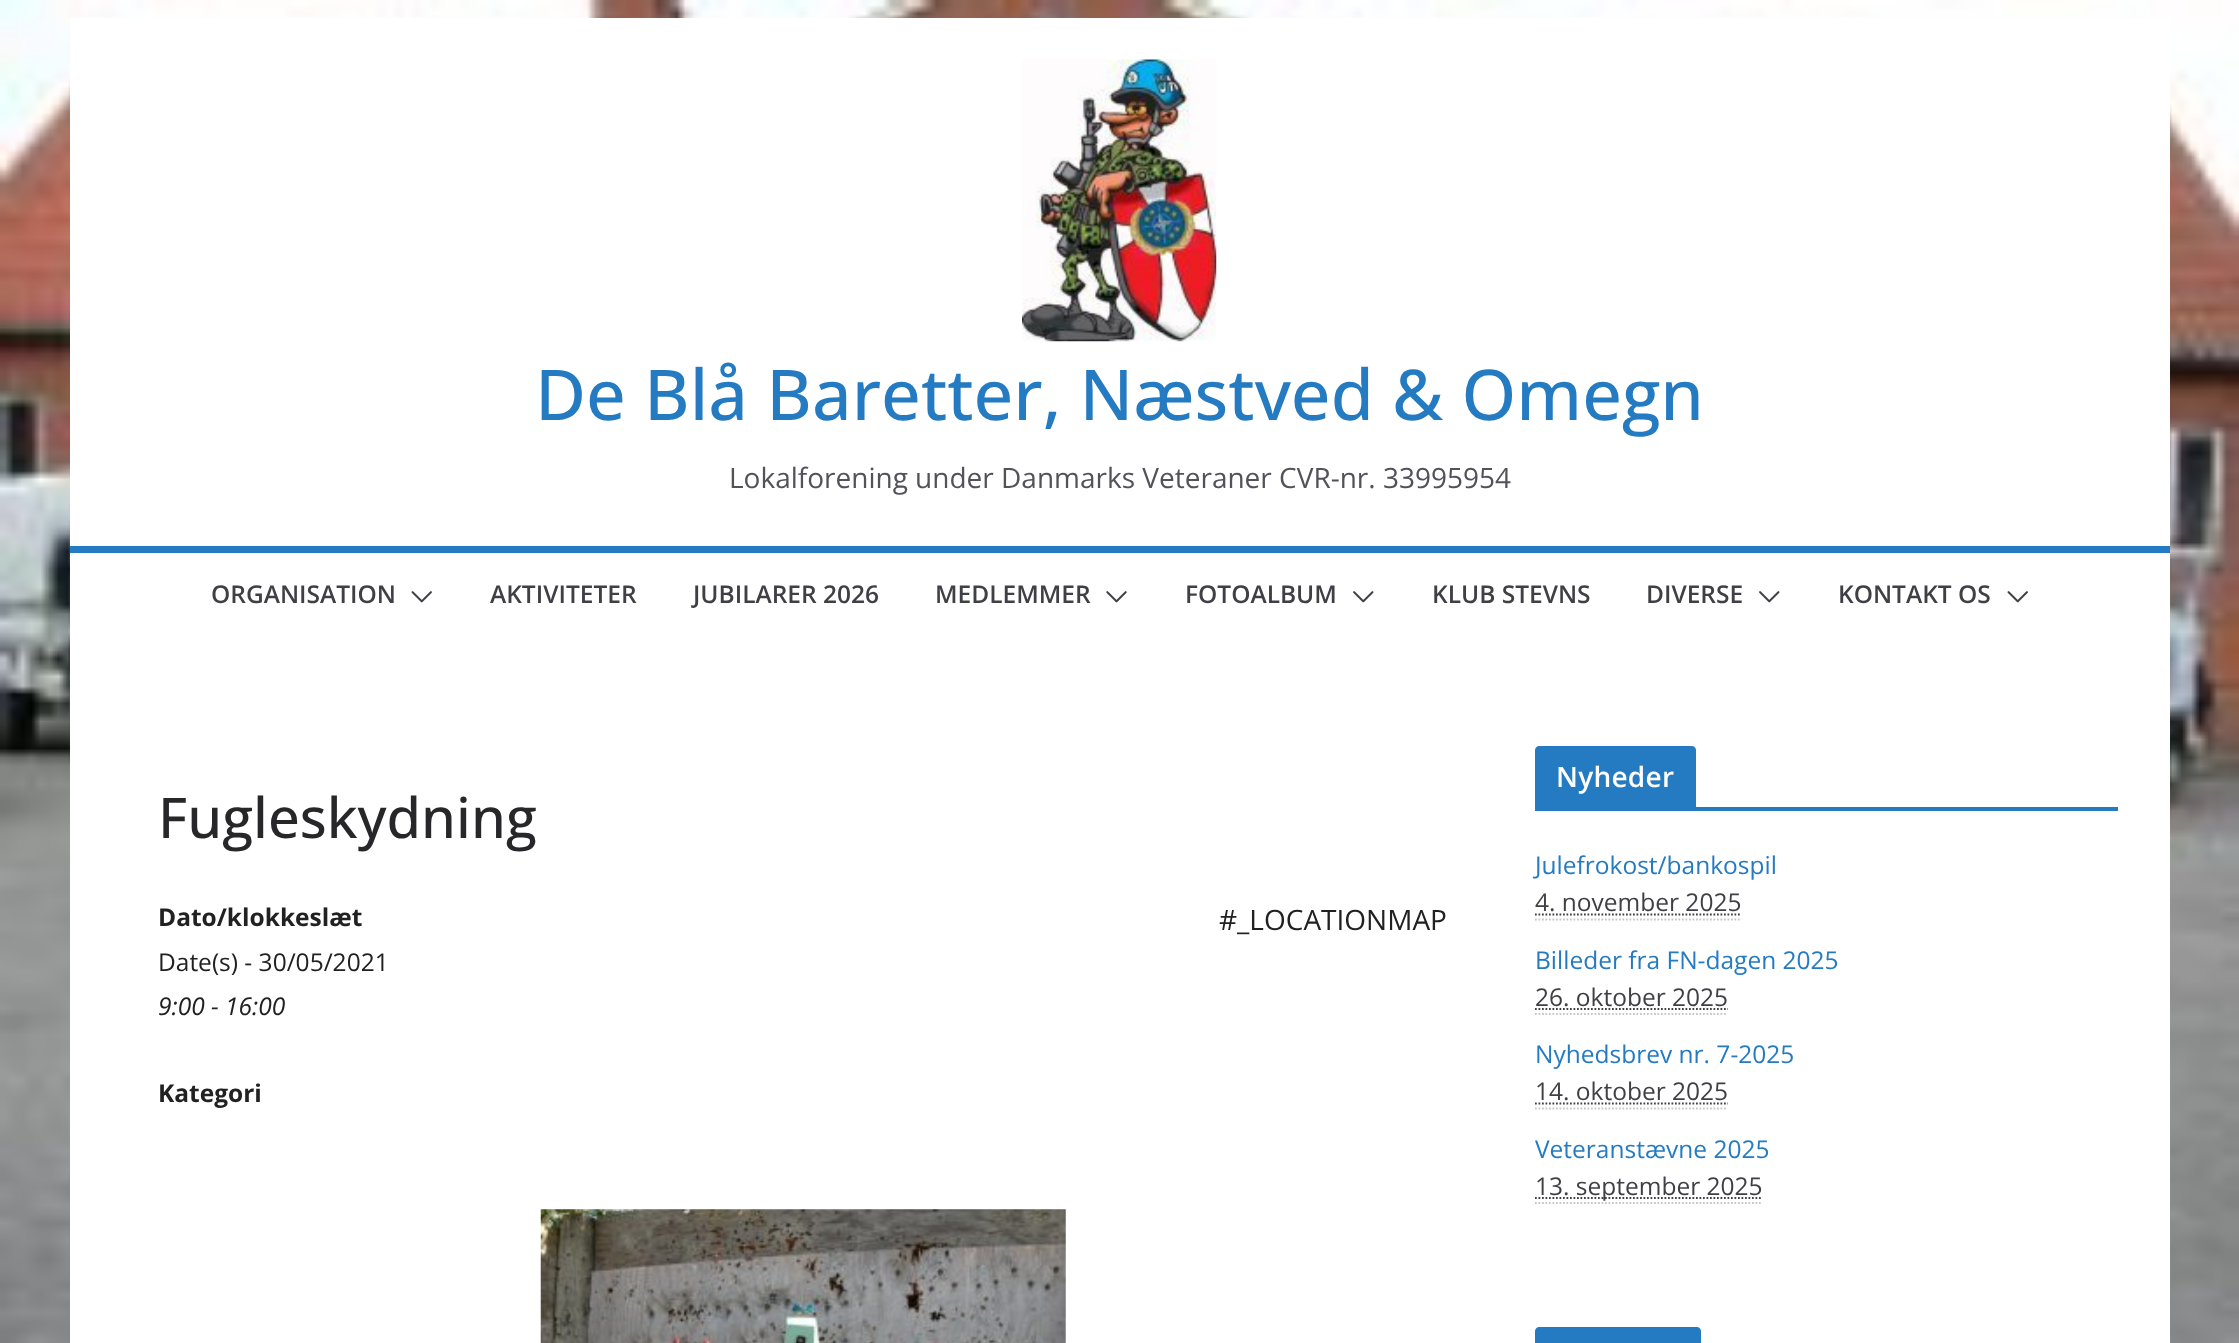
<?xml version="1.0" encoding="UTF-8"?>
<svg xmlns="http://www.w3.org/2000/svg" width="2239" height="1343">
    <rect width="100%" height="100%" fill="#FFFFFF"/>
    <image x="0" y="0" width="2239" height="1343" href="img_01.png"/>
    <rect x="70" y="18" width="2100" height="1325" fill="#FFFFFF"/>
    <image x="1022" y="59" width="195" height="283" href="img_02.png"/>
    <text x="535" y="420" font-family="Open Sans" font-size="70" font-weight="500" fill="#257BC1">De Blå Baretter, Næstved &amp; Omegn</text>
    <text x="729" y="488" font-family="Open Sans" font-size="28" fill="#52525B">Lokalforening under Danmarks Veteraner CVR-nr. 33995954</text>
    <rect x="70" y="546" width="2100" height="7" fill="#257BC1"/>
    <text x="211" y="603" font-family="Open Sans" font-size="24.5" font-weight="600" fill="#3F3F46">ORGANISATION</text>
    <image x="411" y="591" width="21" height="12" href="img_03.png"/>
    <text x="490" y="603" font-family="Open Sans" font-size="24.5" font-weight="600" fill="#3F3F46">AKTIVITETER</text>
    <text x="693" y="603" font-family="Open Sans" font-size="24.5" font-weight="600" fill="#3F3F46">JUBILARER 2026</text>
    <text x="935" y="603" font-family="Open Sans" font-size="24.5" font-weight="600" fill="#3F3F46">MEDLEMMER</text>
    <image x="1106" y="591" width="21" height="12" href="img_04.png"/>
    <text x="1185" y="603" font-family="Open Sans" font-size="24.5" font-weight="600" fill="#3F3F46">FOTOALBUM</text>
    <image x="1353" y="591" width="21" height="12" href="img_05.png"/>
    <text x="1432" y="603" font-family="Open Sans" font-size="24.5" font-weight="600" fill="#3F3F46">KLUB STEVNS</text>
    <text x="1646" y="603" font-family="Open Sans" font-size="24.5" font-weight="600" fill="#3F3F46">DIVERSE</text>
    <image x="1759" y="591" width="21" height="12" href="img_05.png"/>
    <text x="1838" y="603" font-family="Open Sans" font-size="24.5" font-weight="600" fill="#3F3F46">KONTAKT OS</text>
    <image x="2007" y="591" width="21" height="12" href="img_03.png"/>
    <text x="158" y="838" font-family="Open Sans" font-size="56" font-weight="500" fill="#27272A">Fugleskydning</text>
    <text x="158" y="926" font-family="Open Sans" font-size="24.5" font-weight="700" fill="#212121">Dato/klokkeslæt</text>
    <text x="158" y="971" font-family="Open Sans" font-size="24.5" fill="#212121">Date(s) - 30/05/2021</text>
    <text x="158" y="1015" font-family="Open Sans" font-size="24.5" font-style="italic" fill="#212121">9:00 - 16:00</text>
    <text x="1219" y="930" font-family="Open Sans" font-size="28" fill="#212121">#_LOCATIONMAP</text>
    <text x="158" y="1102" font-family="Open Sans" font-size="24.5" font-weight="700" fill="#212121">Kategori</text>
    <image x="540" y="1209" width="526" height="134" href="img_06.png"/>
    <rect x="1535" y="807" width="583" height="4" fill="#257BC1"/>
    <path d="M 1539 746 H 1692 C 1694 746 1696 748 1696 750 V 807 H 1535 V 750 C 1535 748 1537 746 1539 746 Z" fill="#257BC1"/>
    <text x="1556" y="787" font-family="Open Sans" font-size="28" font-weight="600" letter-spacing="0.25" fill="#FFFFFF">Nyheder</text>
    <text x="1535" y="874" font-family="Open Sans" font-size="24.5" fill="#257BC1">Julefrokost/bankospil</text>
    <text x="1535" y="911" font-family="Open Sans" font-size="24.5" fill="#3F3F46">4. november 2025</text>
    <path d="M 1535 919.5 H 1741" fill="none" stroke="#C7C7C7" stroke-width="1.8" stroke-dasharray="1.75 1.75"/>
    <path d="M 1535 914.5 H 1741" fill="none" stroke="#3F3F46" stroke-width="1.8" stroke-dasharray="1.75 1.75"/>
    <text x="1535" y="969" font-family="Open Sans" font-size="24.5" fill="#257BC1">Billeder fra FN-dagen 2025</text>
    <text x="1535" y="1006" font-family="Open Sans" font-size="24.5" fill="#3F3F46">26. oktober 2025</text>
    <path d="M 1535 1014 H 1727" fill="none" stroke="#C7C7C7" stroke-width="1.8" stroke-dasharray="1.75 1.75"/>
    <path d="M 1535 1009 H 1728" fill="none" stroke="#3F3F46" stroke-width="1.8" stroke-dasharray="1.75 1.75"/>
    <text x="1535" y="1063" font-family="Open Sans" font-size="24.5" fill="#257BC1">Nyhedsbrev nr. 7-2025</text>
    <text x="1535" y="1100" font-family="Open Sans" font-size="24.5" fill="#3F3F46">14. oktober 2025</text>
    <path d="M 1535 1108.5 H 1727" fill="none" stroke="#C7C7C7" stroke-width="1.8" stroke-dasharray="1.75 1.75"/>
    <path d="M 1535 1103.5 H 1728" fill="none" stroke="#3F3F46" stroke-width="1.8" stroke-dasharray="1.75 1.75"/>
    <text x="1535" y="1158" font-family="Open Sans" font-size="24.5" fill="#257BC1">Veteranstævne 2025</text>
    <path d="M 1535 1198 H 1762.5" fill="none" stroke="#3F3F46" stroke-width="1.8" stroke-dasharray="1.75 1.75"/>
    <text x="1535" y="1195" font-family="Open Sans" font-size="24.5" fill="#3F3F46">13. september 2025</text>
    <path d="M 1535 1203 H 1762" fill="none" stroke="#C7C7C7" stroke-width="1.8" stroke-dasharray="1.75 1.75"/>
    <path d="M 1539 1327 H 1697 C 1699 1327 1701 1329 1701 1331 V 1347 H 1535 V 1331 C 1535 1329 1537 1327 1539 1327 Z" fill="#257BC1"/>
</svg>
